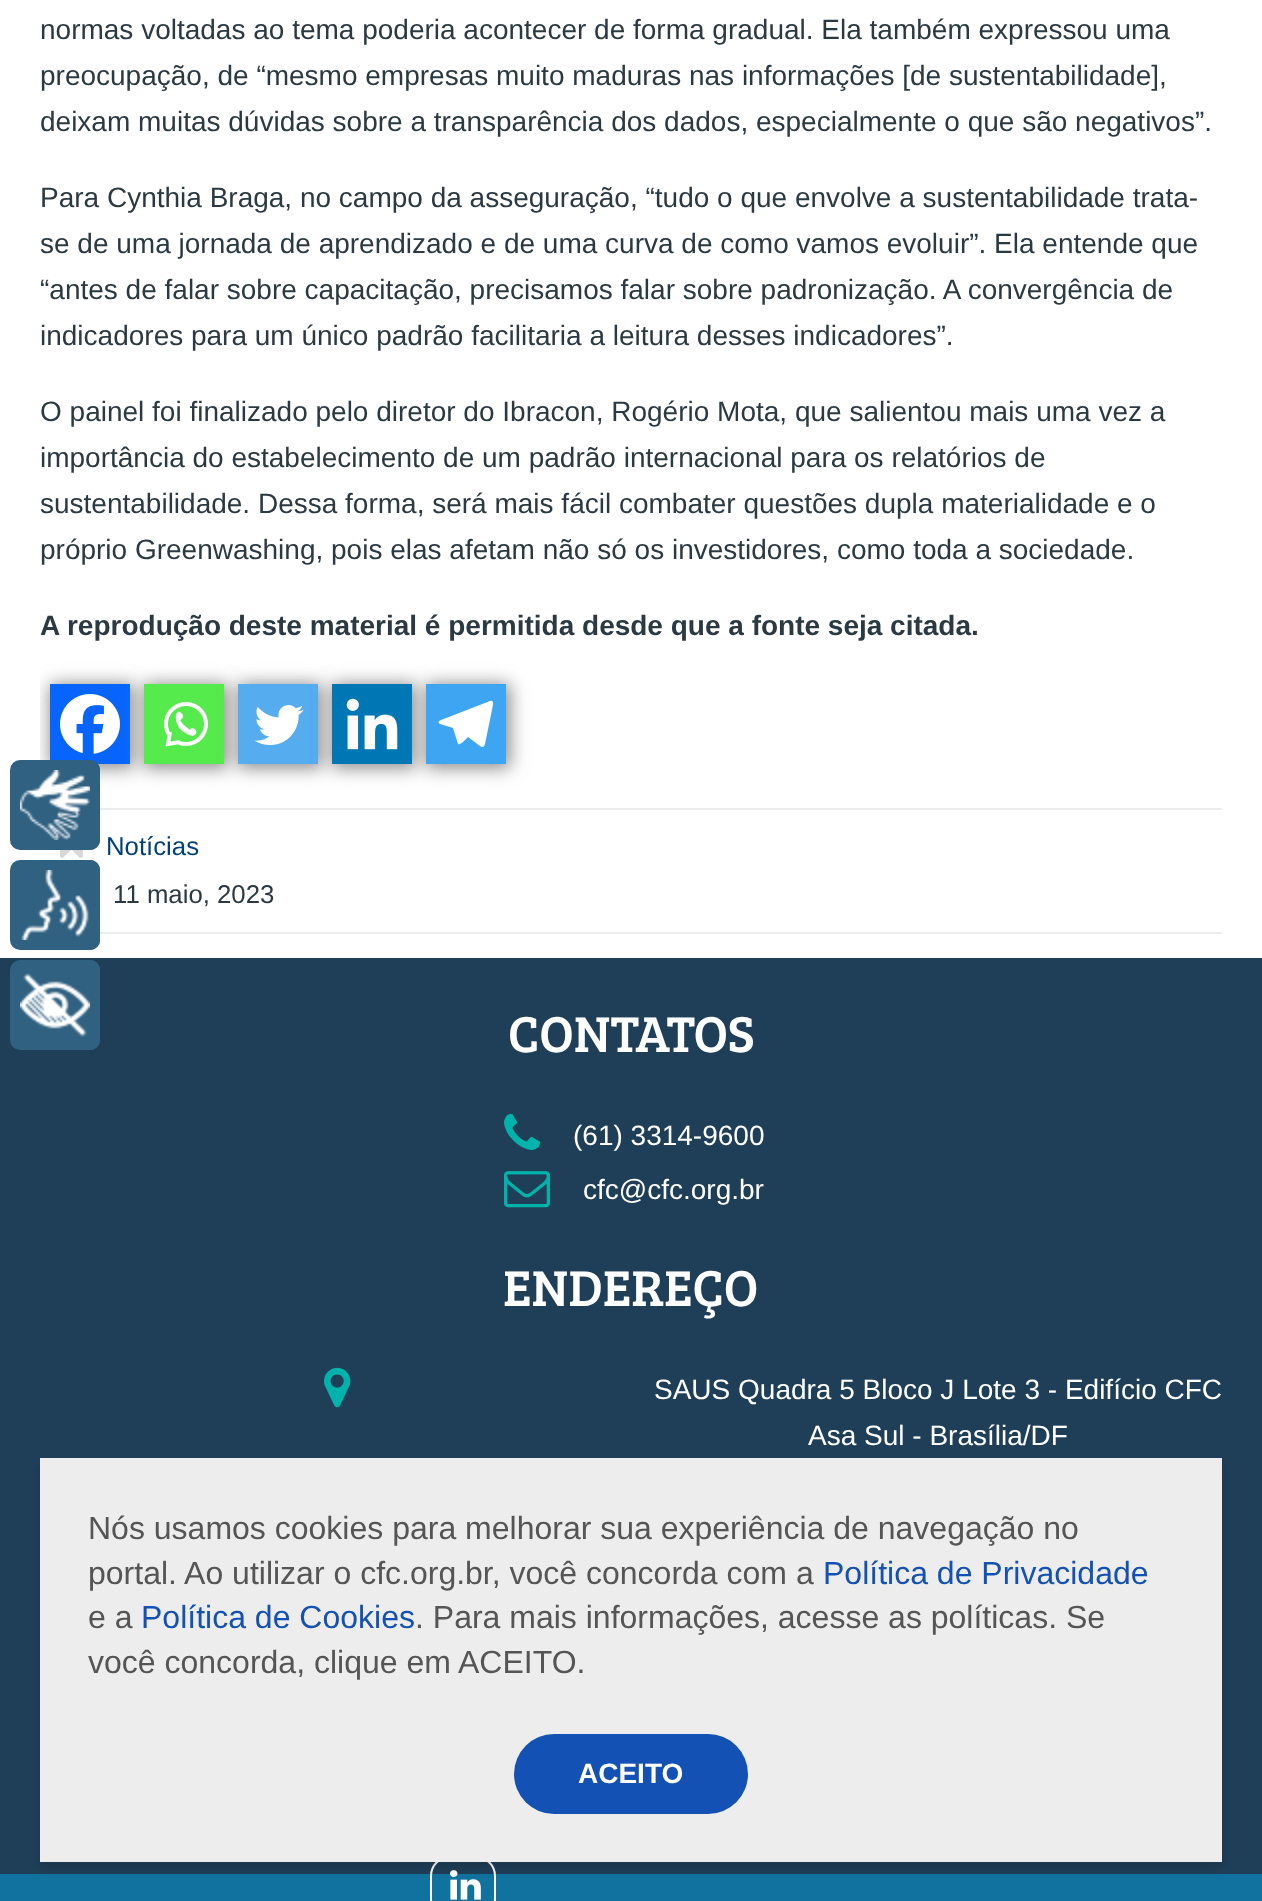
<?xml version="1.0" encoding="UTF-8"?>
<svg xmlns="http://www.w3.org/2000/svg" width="1262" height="1901">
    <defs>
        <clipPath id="clip1"><rect x="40" y="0" width="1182" height="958"/></clipPath>
        <filter id="blur1" x="-50%" y="-200%" width="200%" height="500%"><feGaussianBlur stdDeviation="9"/></filter>
        <filter id="blur2" x="-50%" y="-200%" width="200%" height="500%"><feGaussianBlur stdDeviation="6"/></filter>
    </defs>
    <rect width="100%" height="100%" fill="#FFFFFF"/>
    <text font-family="Liberation Sans" font-size="28" fill="#2B3A42">
        <tspan x="40" y="39">normas voltadas ao tema poderia acontecer de forma gradual. Ela também expressou uma</tspan>
        <tspan x="40" y="85">preocupação, de “mesmo empresas muito maduras nas informações [de sustentabilidade],</tspan>
        <tspan x="40" y="131">deixam muitas dúvidas sobre a transparência dos dados, especialmente o que são negativos”.</tspan>
    </text>
    <text font-family="Liberation Sans" font-size="28" fill="#2B3A42">
        <tspan x="40" y="207">Para Cynthia Braga, no campo da asseguração, “tudo o que envolve a sustentabilidade trata-</tspan>
        <tspan x="40" y="253">se de uma jornada de aprendizado e de uma curva de como vamos evoluir”. Ela entende que</tspan>
        <tspan x="40" y="299">“antes de falar sobre capacitação, precisamos falar sobre padronização. A convergência de</tspan>
        <tspan x="40" y="345">indicadores para um único padrão facilitaria a leitura desses indicadores”.</tspan>
    </text>
    <text font-family="Liberation Sans" font-size="28" fill="#2B3A42">
        <tspan x="40" y="421">O painel foi finalizado pelo diretor do Ibracon, Rogério Mota, que salientou mais uma vez a</tspan>
        <tspan x="40" y="467">importância do estabelecimento de um padrão internacional para os relatórios de</tspan>
        <tspan x="40" y="513">sustentabilidade. Dessa forma, será mais fácil combater questões dupla materialidade e o</tspan>
        <tspan x="40" y="559">próprio Greenwashing, pois elas afetam não só os investidores, como toda a sociedade.</tspan>
    </text>
    <text x="40" y="635" font-family="Liberation Sans" font-size="28" font-weight="700" fill="#2B3A42">A reprodução deste material é permitida desde que a fonte seja citada.</text>
    <g clip-path="url(#clip1)">
        <rect x="50" y="684" width="84" height="84" fill="#888888" filter="url(#blur1)"/>
    </g>
    <rect x="50" y="684" width="80" height="80" fill="#0765FE"/>
    <image x="60" y="694" width="60" height="60" href="img_01.png"/>
    <rect x="144" y="684" width="84" height="84" fill="#888888" filter="url(#blur1)"/>
    <rect x="144" y="684" width="80" height="80" fill="#55EB4C"/>
    <image x="164" y="702" width="44" height="45" href="img_02.png"/>
    <rect x="238" y="684" width="84" height="84" fill="#888888" filter="url(#blur1)"/>
    <rect x="238" y="684" width="80" height="80" fill="#55ACEE"/>
    <image x="254" y="705" width="50" height="40" href="img_03.png"/>
    <rect x="332" y="684" width="84" height="84" fill="#888888" filter="url(#blur1)"/>
    <rect x="332" y="684" width="80" height="80" fill="#0077B5"/>
    <image x="346" y="698" width="52" height="52" href="img_04.png"/>
    <rect x="426" y="684" width="84" height="84" fill="#888888" filter="url(#blur1)"/>
    <rect x="426" y="684" width="80" height="80" fill="#3DA5F1"/>
    <path d="M 490 701 L 441 720 C 438 721 438 723 440 724 L 453 728 L 458 744 C 460 746 467 738 468 737 L 480 746 C 483 748 484 747 485 744 L 493 705 C 494 702 492 700 490 701 Z" fill="#FFFFFF"/>
    <rect x="100" y="808" width="1122" height="2" fill="#ECECEC"/>
    <rect x="100" y="932" width="1122" height="2" fill="#ECECEC"/>
    <image x="60" y="850" width="23" height="8" href="img_05.png"/>
    <text x="106" y="855" font-family="Liberation Sans" font-size="25.75" fill="#02407A">Notícias</text>
    <text x="113" y="903" font-family="Liberation Sans" font-size="25.75" fill="#2B3A42">11 maio, 2023</text>
    <rect x="0" y="1874" width="1262" height="27" fill="#11729F"/>
    <rect x="0" y="958" width="1262" height="916" fill="#1F3F58"/>
    <text x="508" y="1052" font-family="Bree Serif" font-size="52" fill="#FFFFFF">CONTATOS</text>
    <image x="504" y="1113" width="37" height="37" href="img_06.png"/>
    <text x="573" y="1145" font-family="Liberation Sans" font-size="28" fill="#FFFFFF">(61) 3314-9600</text>
    <image x="504" y="1171" width="46" height="37" href="img_07.png"/>
    <text x="583" y="1199" font-family="Liberation Sans" font-size="28" fill="#FFFFFF">cfc@cfc.org.br</text>
    <text x="503" y="1306" font-family="Bree Serif" font-size="52" fill="#FFFFFF">ENDEREÇO</text>
    <image x="324" y="1367" width="27" height="41" href="img_08.png"/>
    <text x="654" y="1399" font-family="Liberation Sans" font-size="28" fill="#FFFFFF">SAUS Quadra 5 Bloco J Lote 3 - Edifício CFC</text>
    <text x="808" y="1445" font-family="Liberation Sans" font-size="28" fill="#FFFFFF">Asa Sul - Brasília/DF</text>
    <rect x="431" y="1857" width="64" height="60" rx="19" fill="none" stroke="#FFFFFF" stroke-width="2"/>
    <image x="450" y="1870" width="31" height="30" href="img_09.png"/>
    <rect x="40" y="1464" width="1182" height="404" fill="#000000" fill-opacity="0.16" filter="url(#blur2)"/>
    <rect x="40" y="1458" width="1182" height="404" fill="#EDEDED"/>
    <text font-family="Liberation Sans" font-size="32" fill="#555555">
        <tspan x="88" y="1539">Nós usamos cookies para melhorar sua experiência de navegação no</tspan>
        <tspan x="88" y="1584">portal. Ao utilizar o cfc.org.br, você concorda com a</tspan>
    </text>
    <text x="823" y="1584" font-family="Liberation Sans" font-size="32" fill="#1351B4">Política de Privacidade</text>
    <text x="88" y="1628" font-family="Liberation Sans" font-size="32" fill="#555555">e a</text>
    <text x="141" y="1628" font-family="Liberation Sans" font-size="32" fill="#1351B4">Política de Cookies</text>
    <text x="415" y="1628" font-family="Liberation Sans" font-size="32" fill="#555555">. Para mais informações, acesse as políticas. Se</text>
    <text x="88" y="1673" font-family="Liberation Sans" font-size="32" fill="#555555">você concorda, clique em ACEITO.</text>
    <rect x="514" y="1734" width="234" height="80" rx="40" fill="#1351B4"/>
    <text x="578" y="1783" font-family="Liberation Sans" font-size="28" font-weight="700" fill="#FFFFFF">ACEITO</text>
    <rect x="10" y="760" width="90" height="90" rx="10" fill="#316181"/>
    <image x="20" y="770" width="70" height="70" href="img_10.png"/>
    <path d="M 90 760 C 95.5 760 100 764.5 100 770 V 840 C 100 845.5 95.5 850 90 850 Z" fill="#316181"/>
    <rect x="10" y="860" width="90" height="90" rx="10" fill="#316181"/>
    <image x="21" y="870" width="68" height="70" href="img_11.png"/>
    <path d="M 90 860 C 95.5 860 100 864.5 100 870 V 940 C 100 945.5 95.5 950 90 950 Z" fill="#316181"/>
    <rect x="10" y="960" width="90" height="90" rx="10" fill="#316181"/>
    <image x="20" y="973" width="70" height="64" href="img_12.png"/>
    <path d="M 90 960 C 95.5 960 100 964.5 100 970 V 1040 C 100 1045.5 95.5 1050 90 1050 Z" fill="#316181"/>
</svg>
